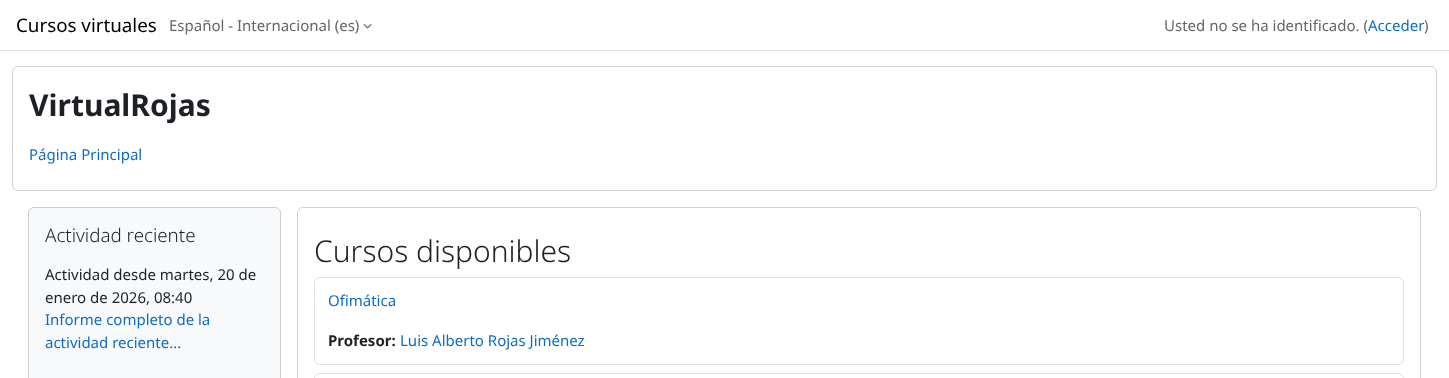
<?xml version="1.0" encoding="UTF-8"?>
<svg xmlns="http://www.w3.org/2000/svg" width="1449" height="378">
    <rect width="100%" height="100%" fill="#FFFFFF"/>
    <rect x="0" y="50" width="1449" height="1" fill="#DEE2E6"/>
    <text x="16" y="32" font-family="Noto Sans" font-size="18.75" fill="#000000">Cursos virtuales</text>
    <text x="169" y="31" font-family="Noto Sans" font-size="15" fill="#666666">Español - Internacional (es)</text>
    <image x="363" y="24" width="9" height="5" href="img_01.png"/>
    <text x="1164" y="31" font-family="Noto Sans" font-size="15" fill="#666666">Usted no se ha identificado. (</text>
    <text x="1368" y="31" font-family="Noto Sans" font-size="15" fill="#0F6CBF">Acceder</text>
    <text x="1424" y="31" font-family="Noto Sans" font-size="15" fill="#666666">)</text>
    <rect x="12.5" y="66.5" width="1424" height="124" rx="5.5" fill="none" stroke="#D2D2D2"/>
    <text x="29" y="116" font-family="Noto Sans" font-size="30" font-weight="700" fill="#1D2125">VirtualRojas</text>
    <text x="29" y="160" font-family="Noto Sans" font-size="15" fill="#0F6CBF">Página Principal</text>
    <rect x="28.5" y="207.5" width="252" height="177" rx="5.5" fill="#F8F9FA" stroke="#CCCDCE"/>
    <text x="45" y="242" font-family="Noto Sans" font-size="18.75" font-weight="300" fill="#1D2125">Actividad reciente</text>
    <text font-family="Noto Sans" font-size="15" fill="#1D2125">
        <tspan x="45" y="280">Actividad desde martes, 20 de</tspan>
        <tspan x="45" y="303">enero de 2026, 08:40</tspan>
    </text>
    <text font-family="Noto Sans" font-size="15" fill="#0F6CBF">
        <tspan x="45" y="325">Informe completo de la</tspan>
        <tspan x="45" y="348">actividad reciente...</tspan>
    </text>
    <rect x="297.5" y="207.5" width="1123" height="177" rx="5.5" fill="none" stroke="#D2D2D2"/>
    <text x="314" y="262" font-family="Noto Sans" font-size="30" font-weight="300" fill="#1D2125">Cursos disponibles</text>
    <rect x="314.5" y="277.5" width="1089" height="87" rx="5.5" fill="none" stroke="#DEE2E6"/>
    <text x="328" y="306" font-family="Noto Sans" font-size="15" fill="#0F6CBF">Ofimática</text>
    <text x="328" y="346" font-family="Noto Sans" font-size="15" font-weight="700" fill="#1D2125">Profesor:</text>
    <text x="400" y="346" font-family="Noto Sans" font-size="15" fill="#0F6CBF">Luis Alberto Rojas Jiménez</text>
    <rect x="314.5" y="373.5" width="1089" height="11" rx="5.5" fill="none" stroke="#DEE2E6"/>
</svg>
